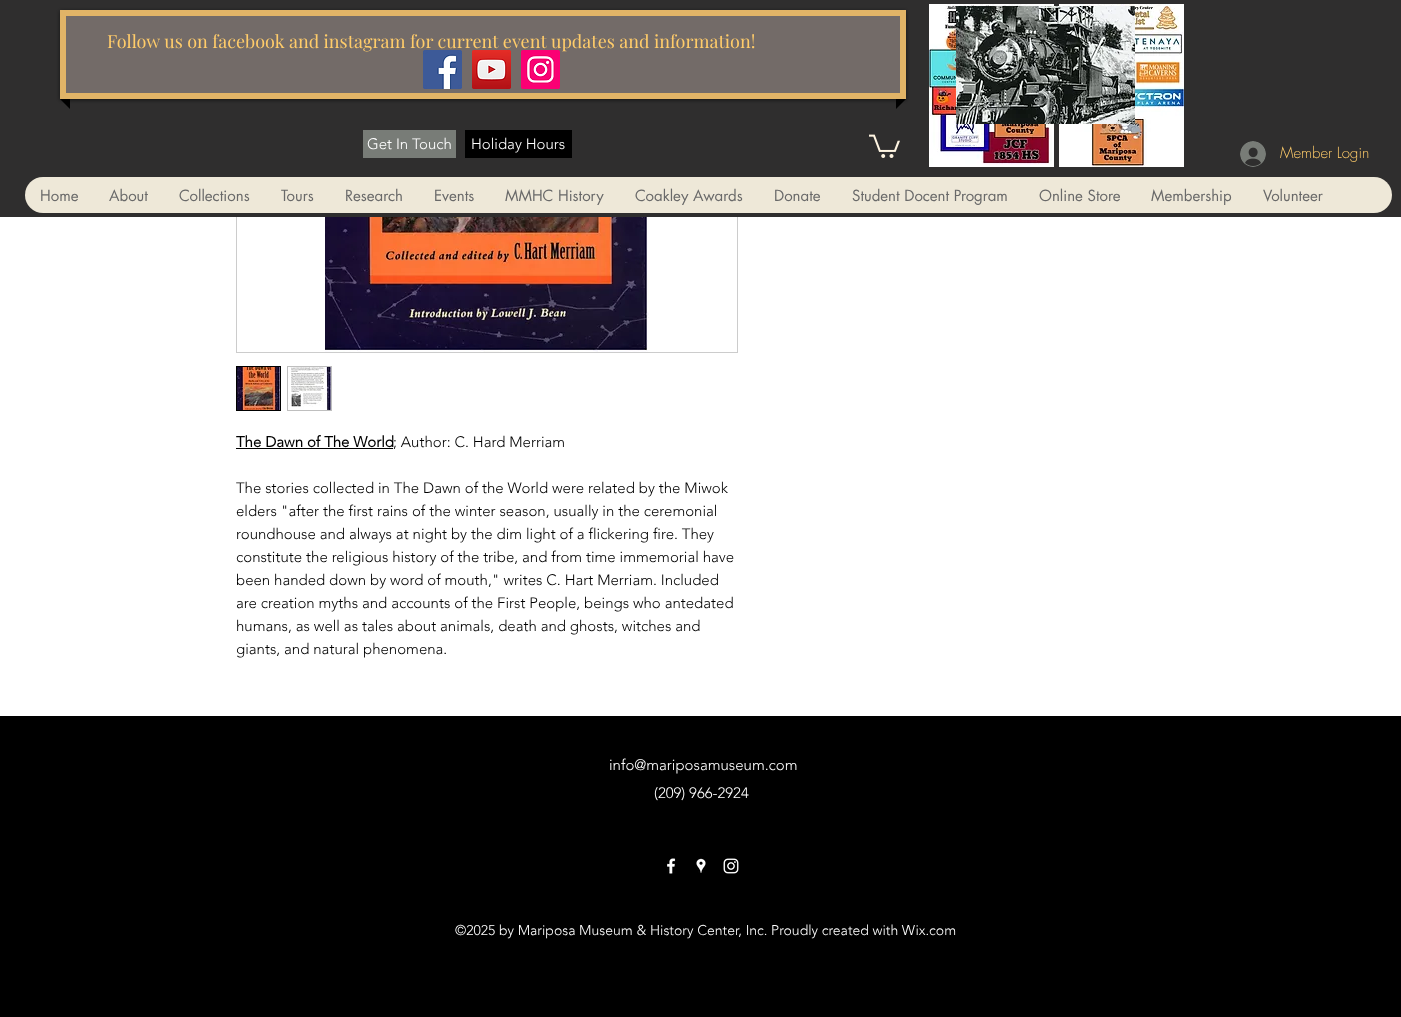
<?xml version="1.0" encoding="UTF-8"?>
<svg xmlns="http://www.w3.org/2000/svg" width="1401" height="1017">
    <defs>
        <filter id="blur1" x="-50%" y="-200%" width="200%" height="500%"><feGaussianBlur stdDeviation="2"/></filter>
    </defs>
    <rect width="100%" height="100%" fill="#FFFFFF"/>
    <rect x="236.5" y="-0.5" width="501" height="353" fill="none" stroke="#CCCCCC"/>
    <rect x="0" y="0" width="1401" height="217" fill="#2F2E2E"/>
    <image x="929" y="4" width="125" height="163" href="img_05.png"/>
    <image x="1059" y="4" width="125" height="163" href="img_06.png"/>
    <image x="956" y="6" width="179" height="118" href="img_01.png"/>
    <path d="M 60 99 H 70 V 109 Z" fill="#000000"/>
    <path d="M 896 99 H 906 L 896 109 Z" fill="#000000"/>
    <rect x="60" y="11" width="846" height="89" fill="#000000" fill-opacity="0.6" filter="url(#blur1)"/>
    <rect x="63" y="13" width="840" height="83" fill="#736B68" stroke="#E1B467" stroke-width="6"/>
    <image x="423" y="50" width="39" height="39" href="img_02.png"/>
    <image x="472" y="50" width="39" height="39" href="img_03.png"/>
    <image x="521" y="50" width="39" height="39" href="img_04.png"/>
    <text x="107" y="48" font-family="Playfair Display" font-size="18" fill="#FFCC6A">Follow us on facebook and instagram for current event updates and information!</text>
    <rect x="363" y="130" width="93" height="28" fill="#787C77"/>
    <text x="367" y="149" font-family="'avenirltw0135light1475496'" font-size="15" font-weight="300" fill="#FFFFFF">Get In Touch</text>
    <rect x="465" y="130" width="107" height="28" fill="#000000"/>
    <text x="471" y="149" font-family="'avenirltw0135light1475496'" font-size="15" font-weight="300" fill="#FFFFFF">Holiday Hours</text>
    <image x="869" y="134" width="31" height="24" href="img_07.png"/>
    <image x="1240" y="141" width="26" height="26" href="img_08.png"/>
    <text x="1280" y="158" font-family="futura" font-size="15" font-weight="300" fill="#FFCC6A">Member Login</text>
    <rect x="25" y="177" width="1367" height="36" rx="18" fill="#EEE8D8"/>
    <text x="40" y="201" font-family="futura" font-size="15" fill="#696969">Home</text>
    <text x="109" y="201" font-family="futura" font-size="15" fill="#696969">About</text>
    <text x="179" y="201" font-family="futura" font-size="15" fill="#696969">Collections</text>
    <text x="281" y="201" font-family="futura" font-size="15" fill="#696969">Tours</text>
    <text x="345" y="201" font-family="futura" font-size="15" fill="#696969">Research</text>
    <text x="434" y="201" font-family="futura" font-size="15" fill="#696969">Events</text>
    <text x="505" y="201" font-family="futura" font-size="15" fill="#696969">MMHC History</text>
    <text x="635" y="201" font-family="futura" font-size="15" fill="#696969">Coakley Awards</text>
    <text x="774" y="201" font-family="futura" font-size="15" fill="#696969">Donate</text>
    <text x="852" y="201" font-family="futura" font-size="15" fill="#696969">Student Docent Program</text>
    <text x="1039" y="201" font-family="futura" font-size="15" fill="#696969">Online Store</text>
    <text x="1151" y="201" font-family="futura" font-size="15" fill="#696969">Membership</text>
    <text x="1263" y="201" font-family="futura" font-size="15" fill="#696969">Volunteer</text>
    <image x="325" y="217" width="324" height="135" href="img_09.png"/>
    <rect x="236.5" y="366.5" width="44" height="44" fill="none" stroke="#000000"/>
    <image x="237" y="367" width="43" height="43" href="img_10.png"/>
    <rect x="287.5" y="366.5" width="44" height="44" fill="none" stroke="#BFBFBF"/>
    <image x="288" y="367" width="43" height="43" href="img_11.png"/>
    <text x="236" y="447" font-family="'avenirltw0135light1475496'" font-size="15" font-weight="700" fill="#000000">The Dawn of The World</text>
    <rect x="236" y="448" width="157" height="1" fill="#000000"/>
    <text x="393" y="447" font-family="'avenirltw0135light1475496'" font-size="15" font-weight="300" fill="#000000">; Author: C. Hard Merriam</text>
    <text font-family="'avenirltw0135light1475496'" font-size="15" font-weight="300" fill="#000000">
        <tspan x="236" y="493">The stories collected in The Dawn of the World were related by the Miwok</tspan>
        <tspan x="236" y="516">elders "after the first rains of the winter season, usually in the ceremonial</tspan>
        <tspan x="236" y="539">roundhouse and always at night by the dim light of a flickering fire. They</tspan>
        <tspan x="236" y="562">constitute the religious history of the tribe, and from time immemorial have</tspan>
        <tspan x="236" y="585">been handed down by word of mouth," writes C. Hart Merriam. Included</tspan>
        <tspan x="236" y="608">are creation myths and accounts of the First People, beings who antedated</tspan>
        <tspan x="236" y="631">humans, as well as tales about animals, death and ghosts, witches and</tspan>
        <tspan x="236" y="654">giants, and natural phenomena.</tspan>
    </text>
    <rect x="0" y="716" width="1401" height="301" fill="#000000"/>
    <text x="609" y="770" font-family="'avenirltw0135light1475496'" font-size="15" font-weight="300" fill="#FFFFFF">info@mariposamuseum.com</text>
    <text x="654" y="798" font-family="'avenirltw0135light1475496'" font-size="15" font-weight="300" fill="#FFFFFF">(209) 966-2924</text>
    <image x="667" y="858" width="9" height="16" href="img_12.png"/>
    <image x="696" y="858" width="10" height="15" href="img_13.png"/>
    <image x="723" y="858" width="16" height="16" href="img_14.png"/>
    <text x="455" y="935" font-family="'avenirltw0135light1475496'" font-size="14" font-weight="300" fill="#FFFFFF">©2025 by Mariposa Museum &amp; History Center, Inc. Proudly created with Wix.com</text>
</svg>
